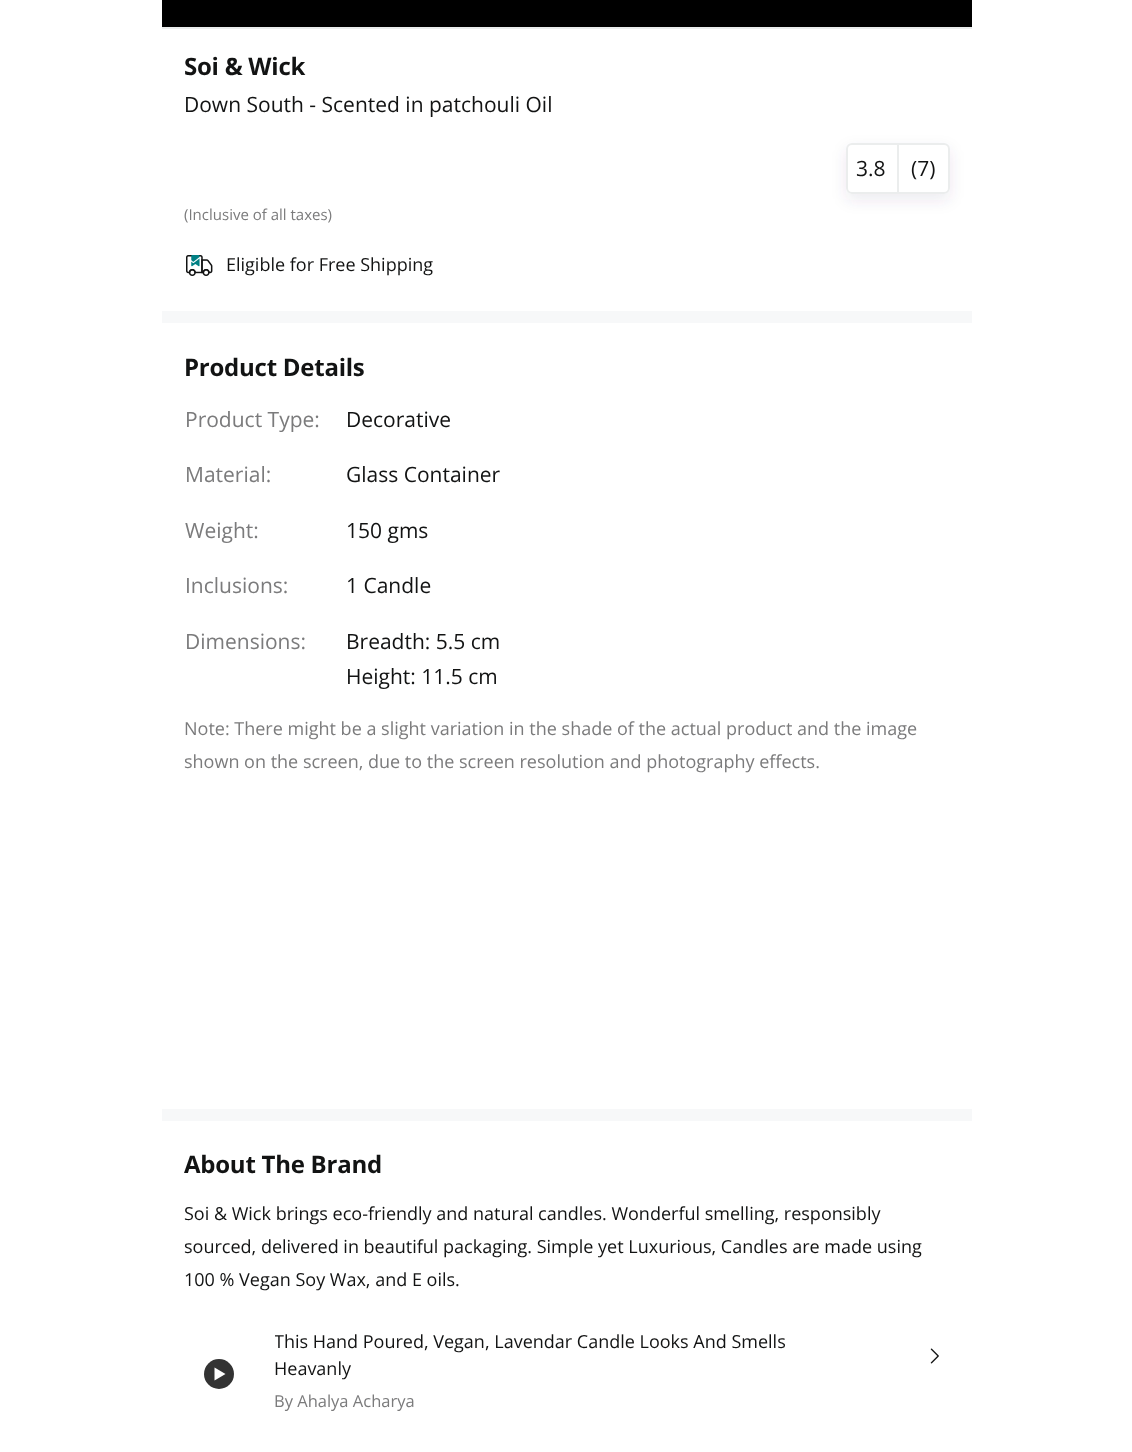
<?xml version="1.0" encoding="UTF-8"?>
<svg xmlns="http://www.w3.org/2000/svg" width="1132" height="1452">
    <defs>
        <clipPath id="clip1"><path d="M 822 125 H 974 V 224 H 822 Z M 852 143 H 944 C 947.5 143 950 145.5 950 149 V 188 C 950 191.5 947.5 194 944 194 H 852 C 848.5 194 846 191.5 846 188 V 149 C 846 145.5 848.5 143 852 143 Z" clip-rule="evenodd"/></clipPath>
        <filter id="blur1" x="-50%" y="-200%" width="200%" height="500%"><feGaussianBlur stdDeviation="7.5"/></filter>
        <clipPath id="clip2"><rect x="275" y="1329" width="540" height="54"/></clipPath>
    </defs>
    <rect width="100%" height="100%" fill="#FFFFFF"/>
    <rect x="162" y="27" width="810" height="2" fill="#EBEDED"/>
    <rect x="162" y="0" width="810" height="27" fill="#000000"/>
    <text x="184" y="75" font-family="Open Sans" font-size="24" font-weight="700" letter-spacing="-0.25" fill="#121313">Soi &amp; Wick</text>
    <text x="184" y="112" font-family="Open Sans" font-size="21" fill="#121313">Down South - Scented in patchouli Oil</text>
    <g clip-path="url(#clip1)">
        <rect x="846" y="149" width="104" height="51" rx="6" fill="#473E67" fill-opacity="0.1" filter="url(#blur1)"/>
    </g>
    <rect x="847" y="144" width="102" height="49" rx="5" fill="none" stroke="#EBEDED" stroke-width="2"/>
    <text x="856" y="176" font-family="Open Sans" font-size="21" fill="#121313">3.8</text>
    <rect x="897" y="144" width="2" height="48" fill="#EBEDED"/>
    <text x="911" y="176" font-family="Open Sans" font-size="21" fill="#121313">(7)</text>
    <text x="184" y="220" font-family="Open Sans" font-size="15" fill="#7B7B7C">(Inclusive of all taxes)</text>
    <image x="186" y="255" width="27" height="21" href="img_01.png"/>
    <text x="226" y="271" font-family="Open Sans" font-size="18" fill="#121313">Eligible for Free Shipping</text>
    <rect x="162" y="311" width="810" height="12" fill="#F7F8F9"/>
    <text x="184" y="376" font-family="Open Sans" font-size="24" font-weight="700" letter-spacing="-0.25" fill="#121313">Product Details</text>
    <text x="185" y="427" font-family="Open Sans" font-size="21" fill="#7B7B7C">Product Type:</text>
    <text x="346" y="427" font-family="Open Sans" font-size="21" fill="#121313">Decorative</text>
    <text x="185" y="482" font-family="Open Sans" font-size="21" fill="#7B7B7C">Material:</text>
    <text x="346" y="482" font-family="Open Sans" font-size="21" fill="#121313">Glass Container</text>
    <text x="185" y="538" font-family="Open Sans" font-size="21" fill="#7B7B7C">Weight:</text>
    <text x="346" y="538" font-family="Open Sans" font-size="21" fill="#121313">150 gms</text>
    <text x="185" y="593" font-family="Open Sans" font-size="21" fill="#7B7B7C">Inclusions:</text>
    <text x="346" y="593" font-family="Open Sans" font-size="21" fill="#121313">1 Candle</text>
    <text x="185" y="649" font-family="Open Sans" font-size="21" fill="#7B7B7C">Dimensions:</text>
    <text font-family="Open Sans" font-size="21" fill="#121313">
        <tspan x="346" y="649">Breadth: 5.5 cm</tspan>
        <tspan x="346" y="684">Height: 11.5 cm</tspan>
    </text>
    <text font-family="Open Sans" font-size="18" fill="#7B7B7C">
        <tspan x="184" y="735">Note: There might be a slight variation in the shade of the actual product and the image</tspan>
        <tspan x="184" y="768">shown on the screen, due to the screen resolution and photography effects.</tspan>
    </text>
    <rect x="162" y="1109" width="810" height="12" fill="#F7F8F9"/>
    <text x="184" y="1173" font-family="Open Sans" font-size="24" font-weight="700" letter-spacing="-0.25" fill="#121313">About The Brand</text>
    <text font-family="Open Sans" font-size="18" fill="#121313">
        <tspan x="184" y="1220">Soi &amp; Wick brings eco-friendly and natural candles. Wonderful smelling, responsibly</tspan>
        <tspan x="184" y="1253">sourced, delivered in beautiful packaging. Simple yet Luxurious, Candles are made using</tspan>
        <tspan x="184" y="1286">100 % Vegan Soy Wax, and E oils.</tspan>
    </text>
    <circle cx="219" cy="1374" r="15" fill="#333333"/>
    <path d="M 225.5 1374 L 214.5 1367.5 V 1380.5 Z" fill="#FFFFFF"/>
    <g clip-path="url(#clip2)">
        <text x="274" y="1348" font-family="Open Sans" font-size="18" fill="#121313">This Hand Poured, Vegan, Lavendar Candle Looks And Smells</text>
    </g>
    <text x="274" y="1375" font-family="Open Sans" font-size="18" fill="#121313">Heavanly</text>
    <image x="930" y="1348" width="9" height="16" href="img_02.png"/>
    <text x="274" y="1407" font-family="Open Sans" font-size="16.5" fill="#7B7B7C">By Ahalya Acharya</text>
</svg>
